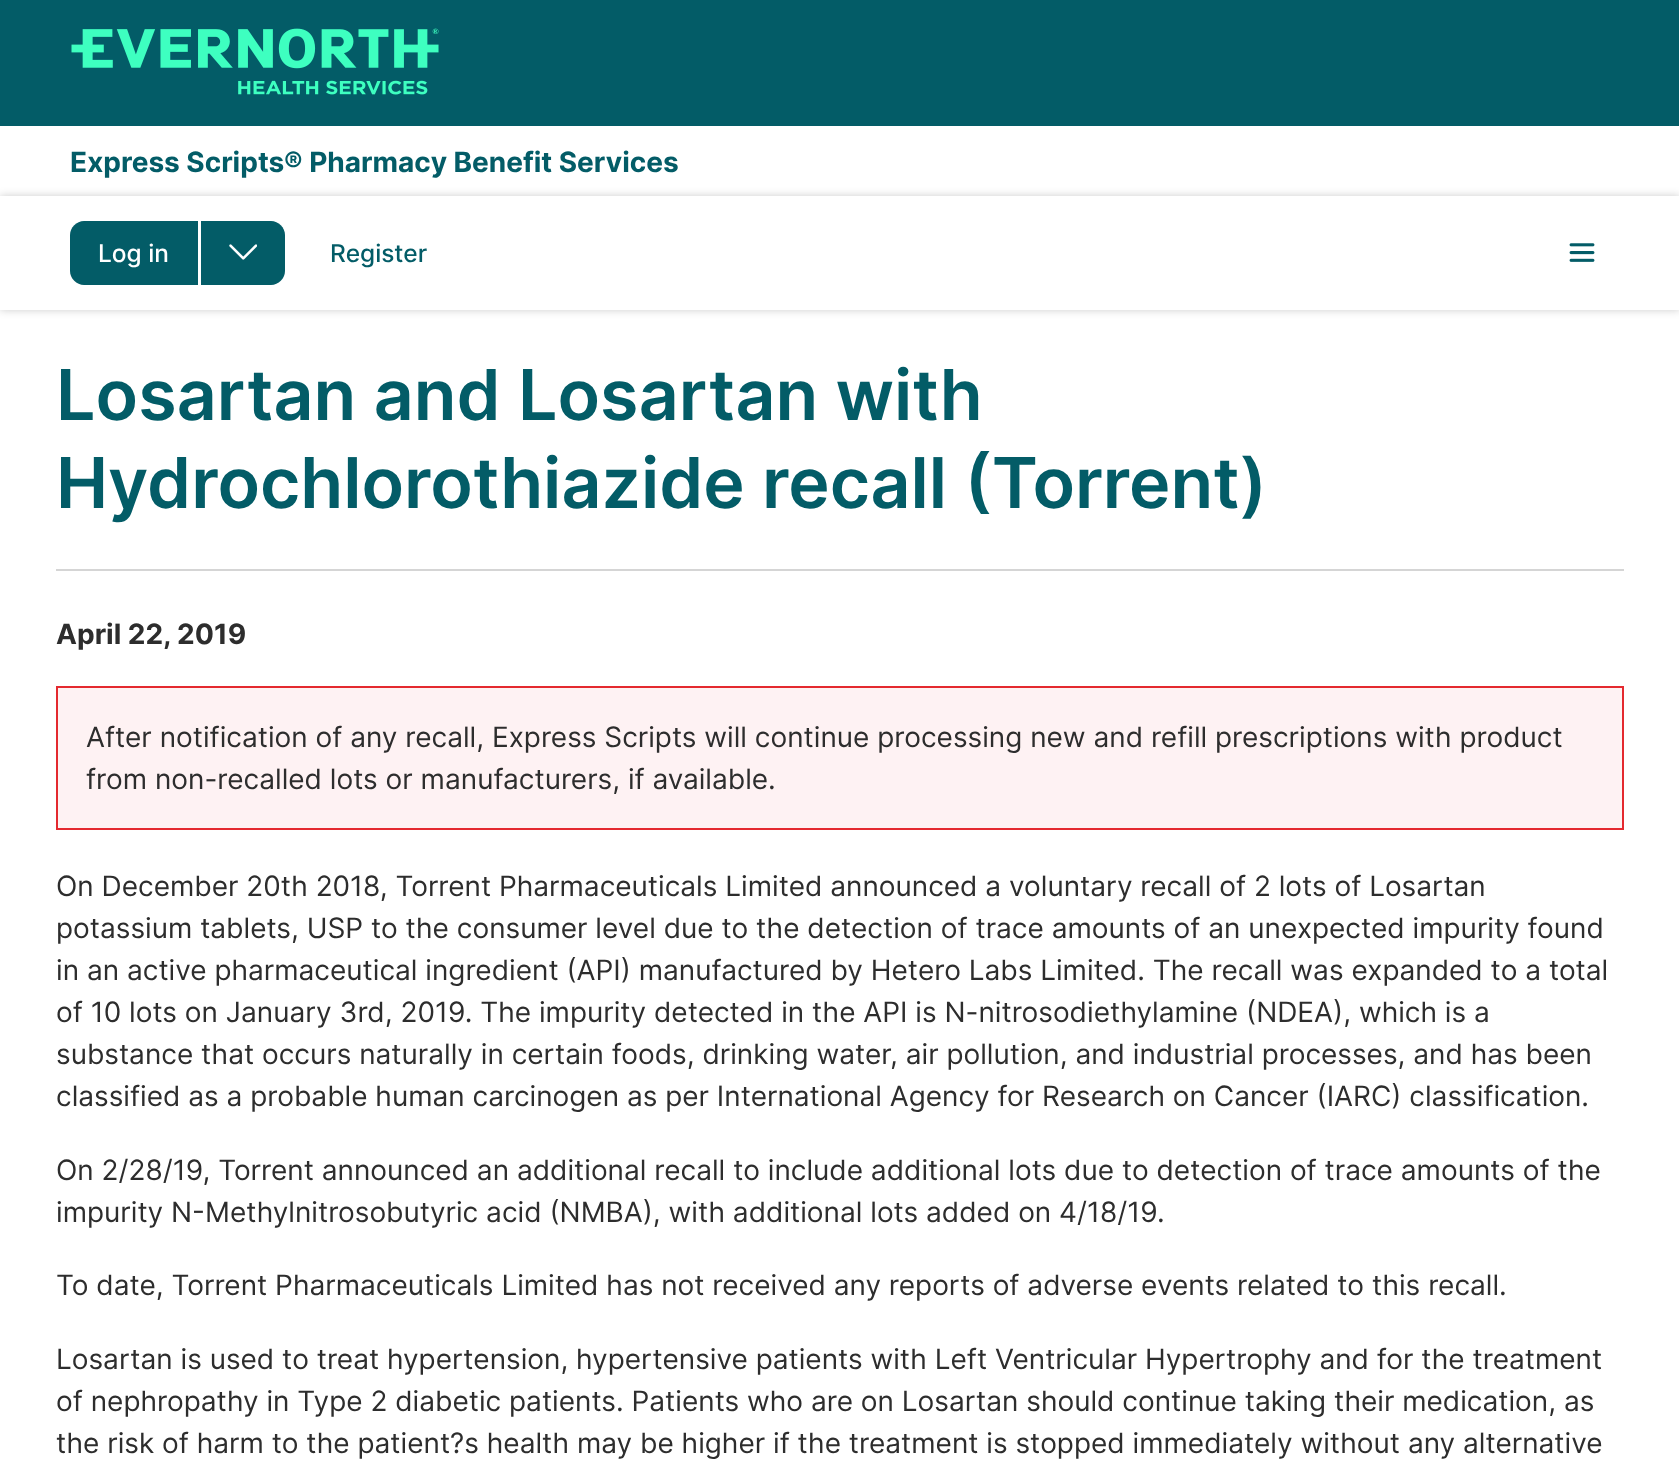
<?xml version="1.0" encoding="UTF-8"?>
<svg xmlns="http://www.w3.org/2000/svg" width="1679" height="1477">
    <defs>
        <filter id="blur1" x="-50%" y="-200%" width="200%" height="500%"><feGaussianBlur stdDeviation="4.5"/></filter>
    </defs>
    <rect width="100%" height="100%" fill="#FFFFFF"/>
    <rect x="0" y="0" width="1679" height="126" fill="#035C67"/>
    <image x="71" y="28" width="368" height="67" href="img_01.png"/>
    <text x="70" y="172" font-family="Inter" font-size="28" font-weight="700" fill="#035C67">Express Scripts® Pharmacy Benefit Services</text>
    <rect x="0" y="196" width="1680" height="114" fill="#000000" fill-opacity="0.2" filter="url(#blur1)"/>
    <rect x="0" y="196" width="1679" height="114" fill="#FFFFFF"/>
    <path d="M 84 221 H 198 V 285 H 84 C 76.5 285 70 278.5 70 271 V 235 C 70 227.5 76.5 221 84 221 Z" fill="#035C67"/>
    <text x="98" y="262" font-family="Inter" font-size="24.5" font-weight="500" fill="#FFFFFF">Log in</text>
    <path d="M 201 221 H 271 C 278.5 221 285 227.5 285 235 V 271 C 285 278.5 278.5 285 271 285 H 201 Z" fill="#035C67"/>
    <image x="229" y="244" width="28" height="16" href="img_02.png"/>
    <text x="330" y="262" font-family="Inter" font-size="24.5" font-weight="500" fill="#035C67">Register</text>
    <image x="1569" y="243" width="26" height="19" href="img_03.png"/>
    <rect x="56" y="569" width="1568" height="2" fill="#D5D5D5"/>
    <text font-family="Inter" font-size="70" font-weight="600" fill="#035C67">
        <tspan x="56" y="420">Losartan and Losartan with</tspan>
        <tspan x="56" y="508">Hydrochlorothiazide recall (Torrent)</tspan>
    </text>
    <text x="56" y="644" font-family="Inter" font-size="28" font-weight="700" fill="#2D2D2D">April 22, 2019</text>
    <rect x="57" y="687" width="1566" height="142" fill="#FEF2F3" stroke="#E4292F" stroke-width="2"/>
    <text font-family="Inter" font-size="28" fill="#2D2D2D">
        <tspan x="86" y="747">After notification of any recall, Express Scripts will continue processing new and refill prescriptions with product</tspan>
        <tspan x="86" y="789">from non-recalled lots or manufacturers, if available.</tspan>
    </text>
    <text font-family="Inter" font-size="28" fill="#2D2D2D">
        <tspan x="56" y="896">On December 20th 2018, Torrent Pharmaceuticals Limited announced a voluntary recall of 2 lots of Losartan</tspan>
        <tspan x="56" y="938">potassium tablets, USP to the consumer level due to the detection of trace amounts of an unexpected impurity found</tspan>
        <tspan x="56" y="980">in an active pharmaceutical ingredient (API) manufactured by Hetero Labs Limited. The recall was expanded to a total</tspan>
        <tspan x="56" y="1022">of 10 lots on January 3rd, 2019. The impurity detected in the API is N-nitrosodiethylamine (NDEA), which is a</tspan>
        <tspan x="56" y="1064">substance that occurs naturally in certain foods, drinking water, air pollution, and industrial processes, and has been</tspan>
        <tspan x="56" y="1106">classified as a probable human carcinogen as per International Agency for Research on Cancer (IARC) classification.</tspan>
    </text>
    <text font-family="Inter" font-size="28" fill="#2D2D2D">
        <tspan x="56" y="1180">On 2/28/19, Torrent announced an additional recall to include additional lots due to detection of trace amounts of the</tspan>
        <tspan x="56" y="1222">impurity N-Methylnitrosobutyric acid (NMBA), with additional lots added on 4/18/19.</tspan>
    </text>
    <text x="56" y="1295" font-family="Inter" font-size="28" fill="#2D2D2D">To date, Torrent Pharmaceuticals Limited has not received any reports of adverse events related to this recall.</text>
    <text font-family="Inter" font-size="28" fill="#2D2D2D">
        <tspan x="56" y="1369">Losartan is used to treat hypertension, hypertensive patients with Left Ventricular Hypertrophy and for the treatment</tspan>
        <tspan x="56" y="1411">of nephropathy in Type 2 diabetic patients. Patients who are on Losartan should continue taking their medication, as</tspan>
        <tspan x="56" y="1453">the risk of harm to the patient?s health may be higher if the treatment is stopped immediately without any alternative</tspan>
    </text>
</svg>
